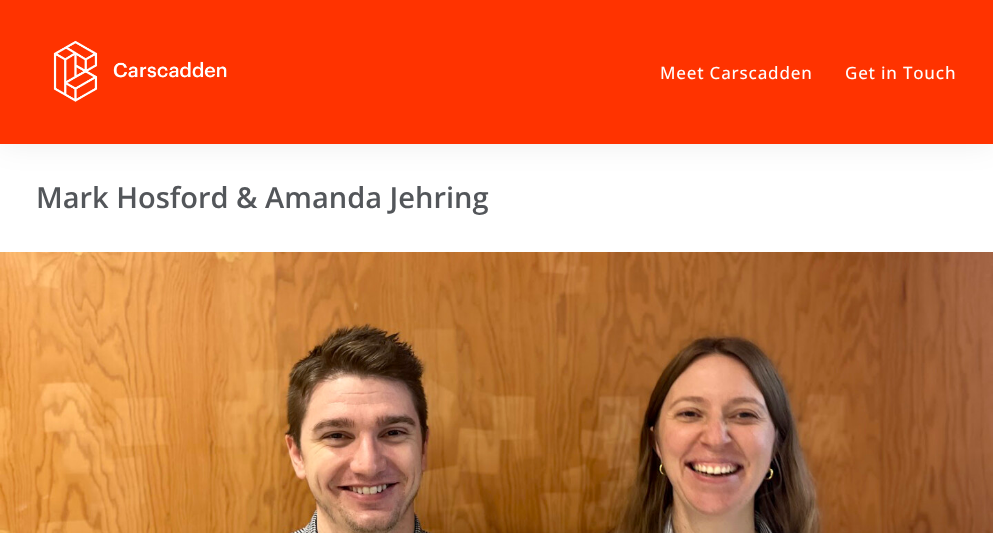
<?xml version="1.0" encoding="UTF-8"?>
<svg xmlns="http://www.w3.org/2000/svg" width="993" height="533">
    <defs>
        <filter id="blur1" x="-50%" y="-200%" width="200%" height="500%"><feGaussianBlur stdDeviation="15"/></filter>
    </defs>
    <rect width="100%" height="100%" fill="#FFFFFF"/>
    <rect x="0" y="0" width="993" height="144" fill="#000000" fill-opacity="0.07" filter="url(#blur1)"/>
    <rect x="0" y="0" width="993" height="144" fill="#FF3300"/>
    <image x="53" y="40" width="174" height="62" href="img_01.png"/>
    <text x="660" y="79" font-family="Open Sans" font-size="17" font-weight="500" letter-spacing="0.8" fill="#FFFFFF">Meet Carscadden</text>
    <text x="845" y="79" font-family="Open Sans" font-size="17" font-weight="500" letter-spacing="0.8" fill="#FFFFFF">Get in Touch</text>
    <text x="36" y="208" font-family="Open Sans" font-size="29" font-weight="600" fill="#53565A">Mark Hosford &amp; Amanda Jehring</text>
    <image x="0" y="252" width="993" height="281" href="img_02.png"/>
</svg>
